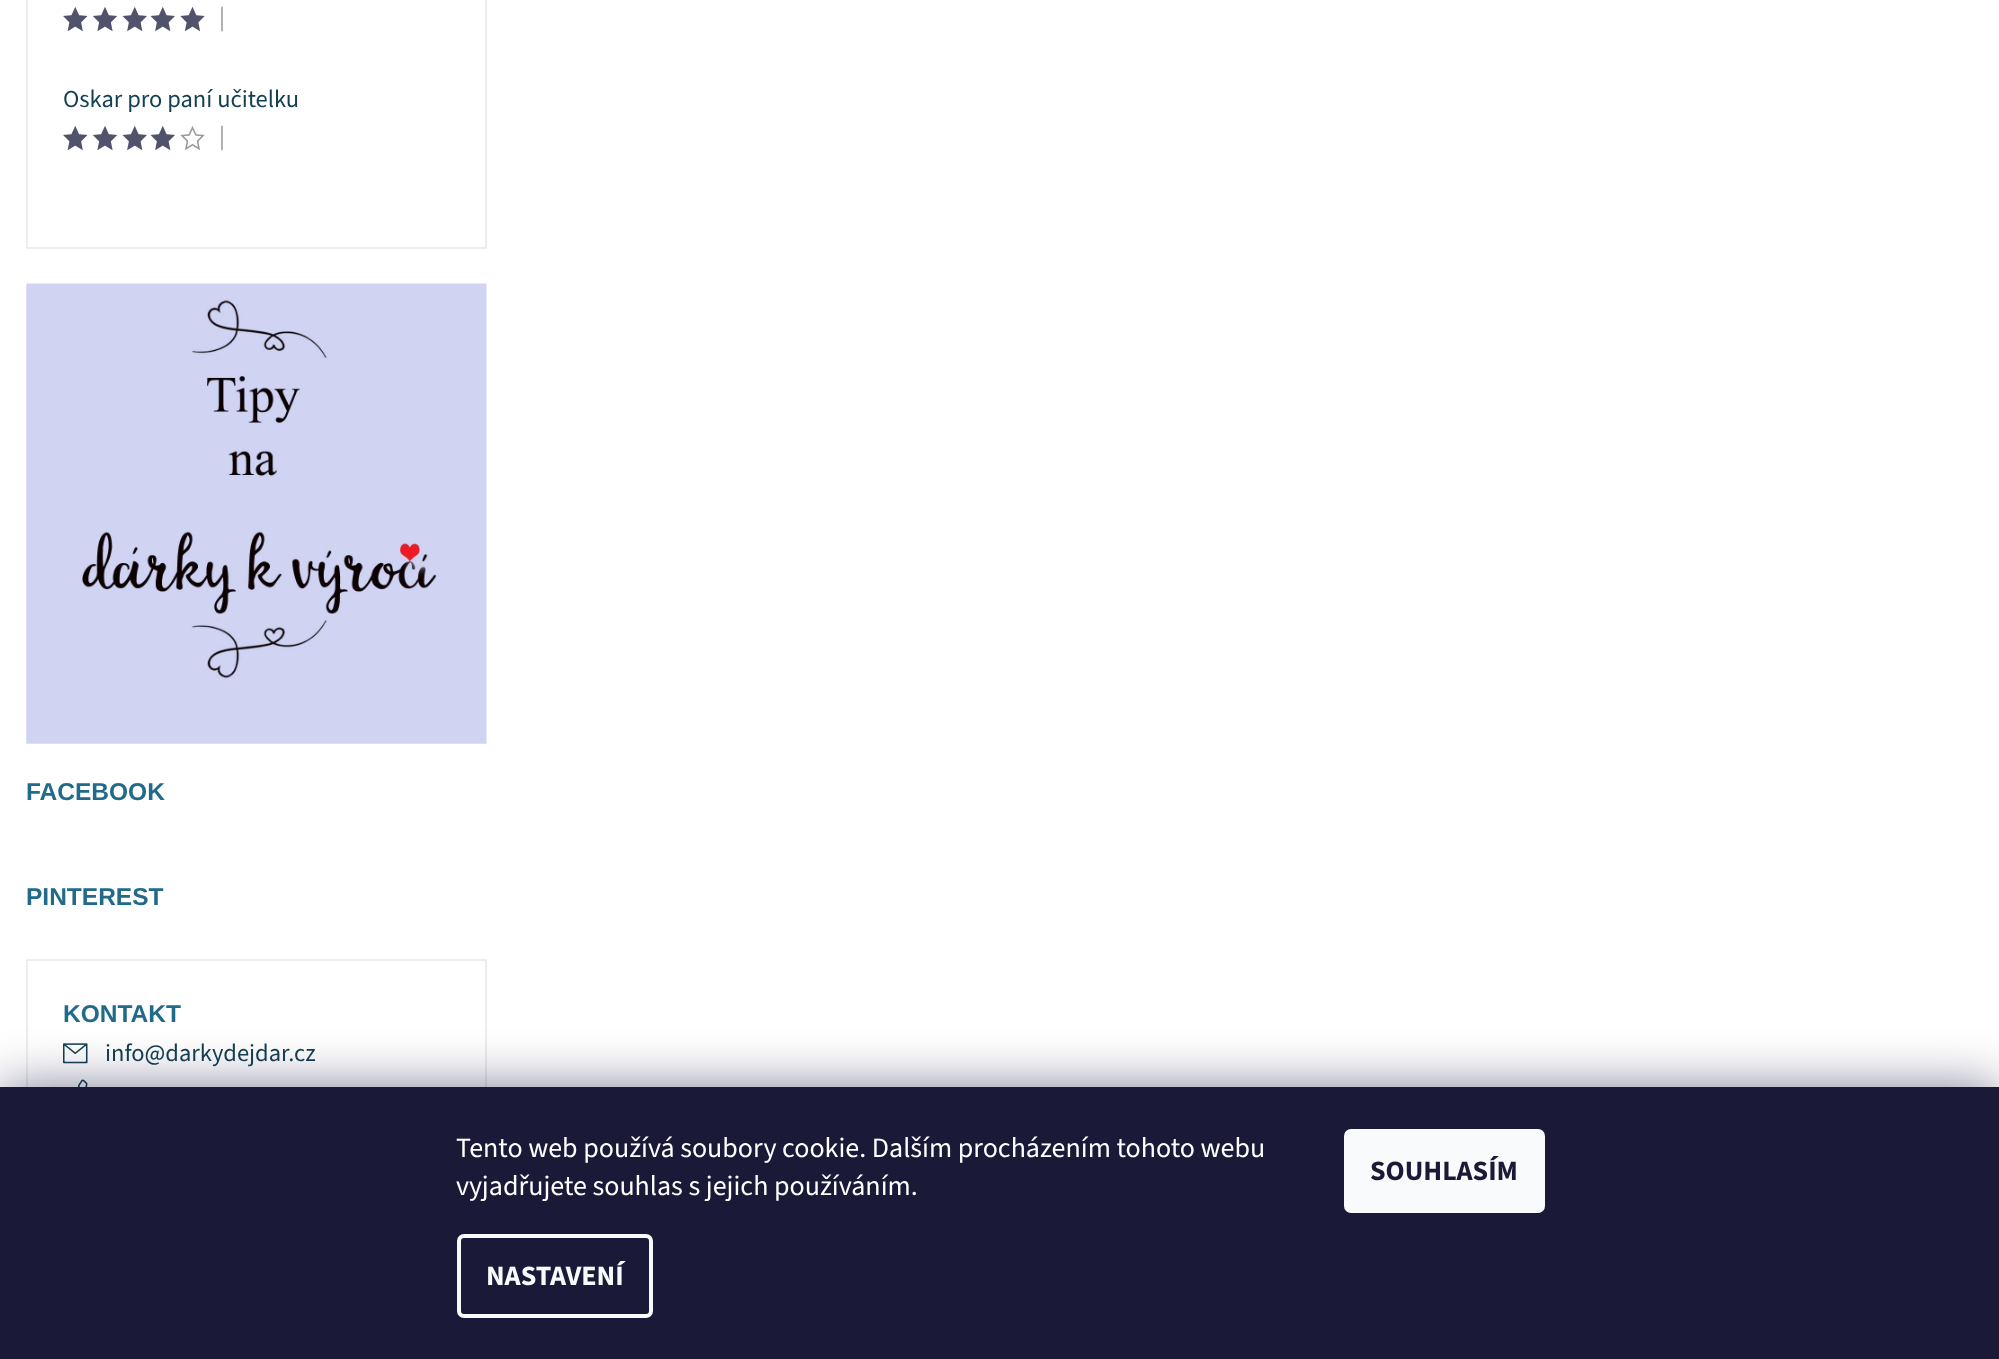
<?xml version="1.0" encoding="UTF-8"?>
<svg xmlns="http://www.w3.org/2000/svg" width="1999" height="1359">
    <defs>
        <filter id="blur1" x="-50%" y="-200%" width="200%" height="500%"><feGaussianBlur stdDeviation="26"/></filter>
    </defs>
    <rect width="100%" height="100%" fill="#FFFFFF"/>
    <rect x="27" y="-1" width="459" height="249" fill="none" stroke="#EDEDED" stroke-width="2"/>
    <image x="63" y="6" width="25" height="26" href="img_01.png"/>
    <image x="92" y="7" width="26" height="25" href="img_02.png"/>
    <image x="122" y="6" width="25" height="26" href="img_03.png"/>
    <image x="150" y="6" width="25" height="26" href="img_03.png"/>
    <image x="180" y="6" width="25" height="26" href="img_04.png"/>
    <text x="219" y="25" font-family="'Source Sans 3'" font-size="24.5" fill="#989898">|</text>
    <text x="63" y="107" font-family="'Source Sans 3'" font-size="24.5" fill="#154053">Oskar pro paní učitelku</text>
    <image x="63" y="125" width="25" height="26" href="img_01.png"/>
    <image x="92" y="126" width="26" height="25" href="img_02.png"/>
    <image x="122" y="125" width="25" height="26" href="img_03.png"/>
    <image x="150" y="125" width="25" height="26" href="img_03.png"/>
    <image x="180" y="126" width="25" height="25" href="img_05.png"/>
    <text x="219" y="144" font-family="'Source Sans 3'" font-size="24.5" fill="#989898">|</text>
    <image x="26" y="283" width="461" height="461" href="img_06.png"/>
    <text x="26" y="800" font-family="Liberation Sans" font-size="24.5" font-weight="700" fill="#226A8A">FACEBOOK</text>
    <text x="26" y="905" font-family="Liberation Sans" font-size="24.5" font-weight="700" fill="#226A8A">PINTEREST</text>
    <rect x="27" y="960" width="459" height="287" fill="none" stroke="#EDEDED" stroke-width="2"/>
    <text x="63" y="1022" font-family="Liberation Sans" font-size="24.5" font-weight="700" fill="#226A8A">KONTAKT</text>
    <image x="63" y="1043" width="25" height="21" href="img_07.png"/>
    <text x="105" y="1061" font-family="'Source Sans 3'" font-size="24.5" fill="#154053">info@darkydejdar.cz</text>
    <image x="77" y="1079" width="11" height="8" href="img_08.png"/>
    <rect x="0" y="1087" width="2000" height="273" fill="#1B1939" fill-opacity="0.5" filter="url(#blur1)"/>
    <rect x="0" y="1087" width="1999" height="272" fill="#1A1937"/>
    <text font-family="'Source Sans 3'" font-size="28" fill="#FFFFFF">
        <tspan x="456" y="1157">Tento web používá soubory cookie. Dalším procházením tohoto webu</tspan>
        <tspan x="456" y="1195">vyjadřujete souhlas s jejich používáním.</tspan>
    </text>
    <rect x="459" y="1236" width="192" height="80" rx="5" fill="none" stroke="#F8FAFB" stroke-width="4"/>
    <text x="486" y="1285" font-family="'Source Sans 3'" font-size="28" font-weight="700" fill="#F8FAFB">NASTAVENÍ</text>
    <rect x="1344" y="1129" width="201" height="84" rx="7" fill="#F8FAFB"/>
    <text x="1370" y="1180" font-family="'Source Sans 3'" font-size="28" font-weight="700" fill="#1A1937">SOUHLASÍM</text>
</svg>
